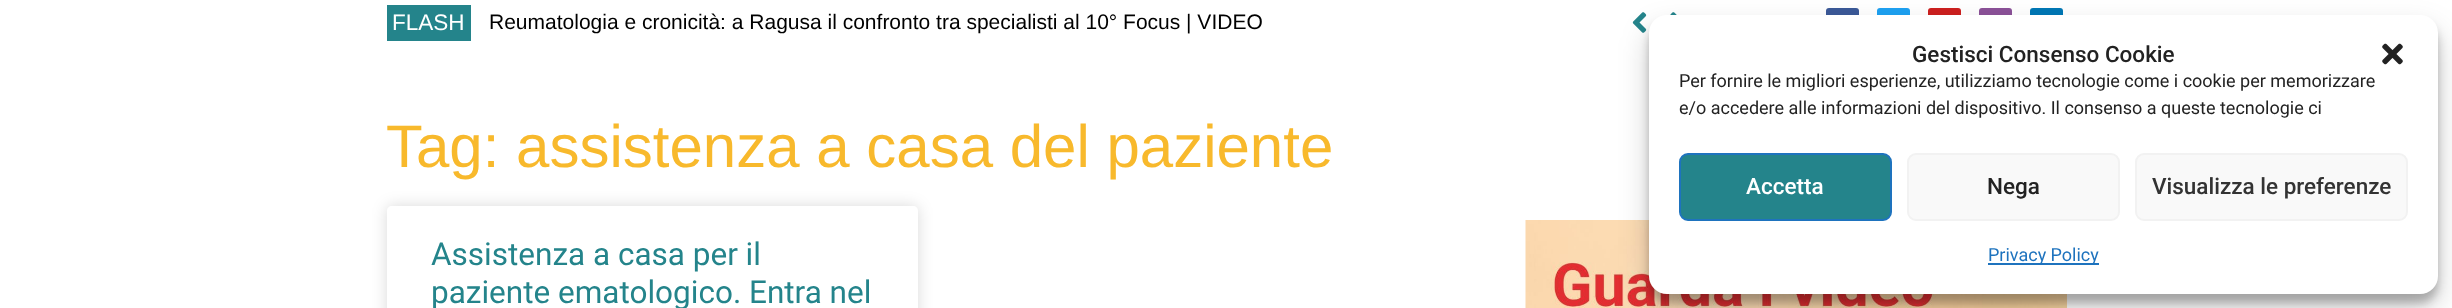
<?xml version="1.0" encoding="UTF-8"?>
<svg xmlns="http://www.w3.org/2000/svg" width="2452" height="308">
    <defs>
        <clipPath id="clip1"><path d="M 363 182 H 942 V 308 H 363 Z M 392 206 H 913 C 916 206 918 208 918 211 V 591 C 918 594 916 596 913 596 H 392 C 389 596 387 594 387 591 V 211 C 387 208 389 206 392 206 Z" clip-rule="evenodd"/></clipPath>
        <filter id="blur1" x="-50%" y="-200%" width="200%" height="500%"><feGaussianBlur stdDeviation="7.5"/></filter>
        <filter id="blur2" x="-50%" y="-200%" width="200%" height="500%"><feGaussianBlur stdDeviation="4.5"/></filter>
        <filter id="blur3" x="-50%" y="-200%" width="200%" height="500%"><feGaussianBlur stdDeviation="15"/></filter>
    </defs>
    <rect width="100%" height="100%" fill="#FFFFFF"/>
    <rect x="387" y="5" width="84" height="36" fill="#24848B"/>
    <text x="392" y="30" font-family="Liberation Sans" font-size="22.5" fill="#FFFFFF">FLASH</text>
    <text x="489" y="29" font-family="Liberation Sans" font-size="21" fill="#000000">Reumatologia e cronicità: a Ragusa il confronto tra specialisti al 10° Focus | VIDEO</text>
    <image x="1632" y="12" width="15" height="21" href="img_01.png"/>
    <image x="1670" y="12" width="7" height="3" href="img_02.png"/>
    <rect x="1826" y="8" width="33" height="33" rx="3" fill="#3B5998"/>
    <rect x="1877" y="8" width="33" height="33" rx="3" fill="#1DA1F2"/>
    <rect x="1928" y="8" width="33" height="33" rx="3" fill="#CD201F"/>
    <rect x="1979" y="8" width="33" height="33" rx="3" fill="#8B5198"/>
    <rect x="2030" y="8" width="33" height="33" rx="3" fill="#0077B5"/>
    <text x="386" y="167" font-family="Liberation Sans" font-size="60" fill="#F8B92C">Tag: assistenza a casa del paziente</text>
    <g clip-path="url(#clip1)">
        <rect x="387" y="206" width="531" height="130" rx="5" fill="#000000" fill-opacity="0.15" filter="url(#blur1)"/>
    </g>
    <text font-family="Roboto" font-size="31.5" fill="#24848B">
        <tspan x="431" y="265">Assistenza a casa per il</tspan>
        <tspan x="431" y="303">paziente ematologico. Entra nel</tspan>
    </text>
    <image x="1525" y="220" width="542" height="88" href="img_03.png"/>
    <rect x="1649" y="24" width="789" height="279" rx="18" fill="#000000" fill-opacity="0.23" filter="url(#blur2)"/>
    <rect x="1649" y="30" width="789" height="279" rx="18" fill="#000000" fill-opacity="0.19" filter="url(#blur3)"/>
    <rect x="1649" y="15" width="789" height="279" rx="18" fill="#FFFFFF"/>
    <text x="1912" y="62" font-family="Roboto" font-size="22.5" font-weight="500" fill="#222222">Gestisci Consenso Cookie</text>
    <image x="2382" y="43" width="21" height="22" href="img_04.png"/>
    <text font-family="Roboto" font-size="18" fill="#222222">
        <tspan x="1679" y="87">Per fornire le migliori esperienze, utilizziamo tecnologie come i cookie per memorizzare</tspan>
        <tspan x="1679" y="114">e/o accedere alle informazioni del dispositivo. Il consenso a queste tecnologie ci</tspan>
    </text>
    <rect x="1680" y="154" width="211" height="66" rx="8" fill="#24848B" stroke="#1E73BE" stroke-width="2"/>
    <text x="1746" y="194" font-family="Roboto" font-size="22.5" font-weight="500" fill="#FFFFFF">Accetta</text>
    <rect x="1908" y="154" width="211" height="66" rx="8" fill="#F9F9F9" stroke="#F2F2F2" stroke-width="2"/>
    <text x="1987" y="194" font-family="Roboto" font-size="22.5" font-weight="500" fill="#222222">Nega</text>
    <rect x="2136" y="154" width="271" height="66" rx="8" fill="#F9F9F9" stroke="#F2F2F2" stroke-width="2"/>
    <text x="2152" y="194" font-family="Roboto" font-size="22.5" font-weight="500" fill="#333333">Visualizza le preferenze</text>
    <rect x="1988" y="263" width="111" height="2" fill="#1E73BE"/>
    <text x="1988" y="261" font-family="Roboto" font-size="18" fill="#1E73BE">Privacy Policy</text>
</svg>
